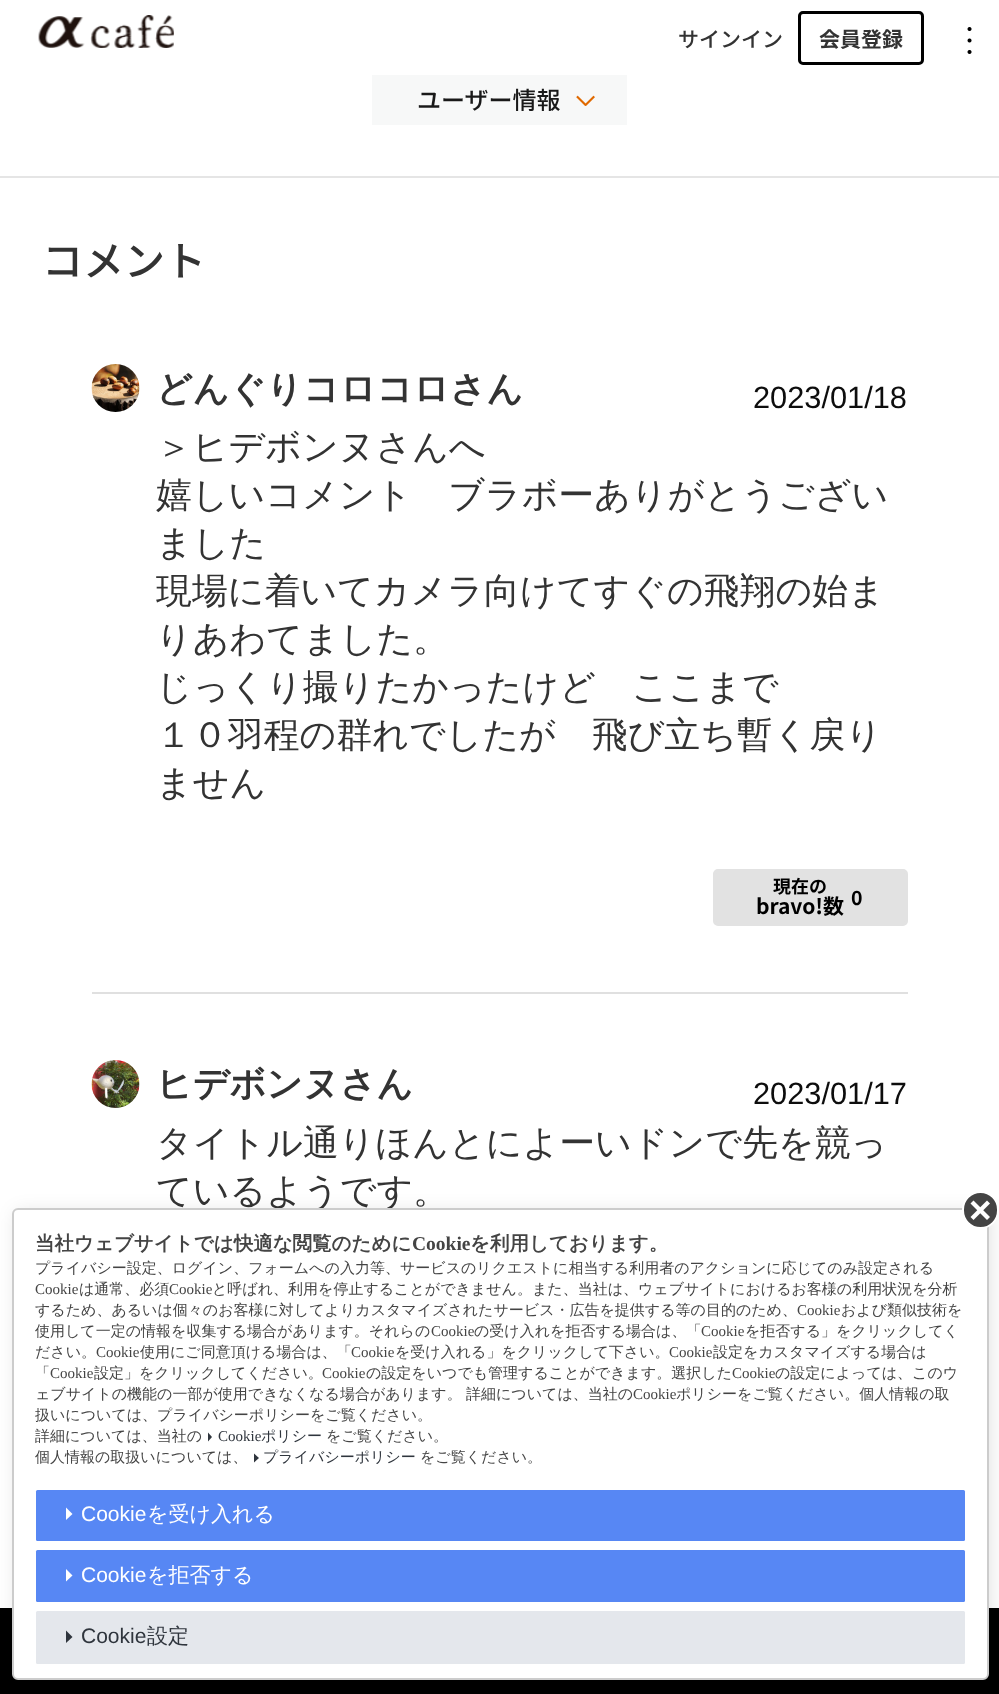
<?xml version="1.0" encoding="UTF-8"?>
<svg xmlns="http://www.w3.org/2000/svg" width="999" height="1694">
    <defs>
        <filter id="blur1" x="-50%" y="-200%" width="200%" height="500%"><feGaussianBlur stdDeviation="9"/></filter>
    </defs>
    <rect width="100%" height="100%" fill="#FFFFFF"/>
    <image x="38" y="15" width="136" height="33" href="img_01.png"/>
    <text x="678" y="47" font-family="Noto Sans JP" font-size="21" font-weight="500" fill="#333333">サインイン</text>
    <rect x="799.5" y="12.5" width="123" height="51" rx="3.5" fill="none" stroke="#000000" stroke-width="3"/>
    <text x="819" y="47" font-family="Noto Sans JP" font-size="21" font-weight="700" fill="#333333">会員登録</text>
    <image x="967" y="27" width="5" height="27" href="img_02.png"/>
    <rect x="372" y="75" width="255" height="50" fill="#F7F8F8"/>
    <text x="417" y="109" font-family="Noto Sans JP" font-size="24" font-weight="500" fill="#191919">ユーザー情報</text>
    <image x="576" y="95" width="19" height="11" href="img_03.png"/>
    <rect x="0" y="176" width="999" height="2" fill="#E5E5E5"/>
    <text x="42" y="276" font-family="Noto Sans JP" font-size="41" font-weight="500" fill="#333333">コメント</text>
    <image x="91" y="364" width="49" height="48" href="img_04.png"/>
    <text x="156" y="401" font-family="WenQuanYi Zen Hei" font-size="35.9" font-weight="700" fill="#333333">どんぐりコロコロさん</text>
    <text x="753" y="408" font-family="Liberation Sans" font-size="30.75" fill="#0D0D0D">2023/01/18</text>
    <text font-family="WenQuanYi Zen Hei" font-size="35.9" font-weight="500" fill="#333333">
        <tspan x="156" y="459">＞ヒデボンヌさんへ</tspan>
        <tspan x="156" y="507">嬉しいコメント　ブラボーありがとうござい</tspan>
        <tspan x="156" y="555">ました</tspan>
        <tspan x="156" y="603">現場に着いてカメラ向けてすぐの飛翔の始ま</tspan>
        <tspan x="156" y="651">りあわてました。</tspan>
        <tspan x="156" y="699">じっくり撮りたかったけど　ここまで</tspan>
        <tspan x="156" y="747">１０羽程の群れでしたが　飛び立ち暫く戻り</tspan>
        <tspan x="156" y="795">ません</tspan>
    </text>
    <rect x="714.5" y="870.5" width="192" height="54" rx="3.5" fill="#E2E2E2" stroke="#E2E2E2" stroke-width="3"/>
    <text x="773" y="893" font-family="Noto Sans JP" font-size="18" font-weight="700" fill="#000000">現在の</text>
    <text x="756" y="914" font-family="Noto Sans JP" font-size="21" font-weight="700" fill="#000000">bravo!数</text>
    <text x="851" y="905" font-family="Noto Sans JP" font-size="19.5" font-weight="700" fill="#000000">0</text>
    <rect x="92" y="992" width="816" height="2" fill="#E0E0E0"/>
    <image x="91" y="1060" width="49" height="48" href="img_05.png"/>
    <text x="156" y="1096" font-family="WenQuanYi Zen Hei" font-size="35.9" font-weight="700" fill="#333333">ヒデボンヌさん</text>
    <text x="753" y="1104" font-family="Liberation Sans" font-size="30.75" fill="#0D0D0D">2023/01/17</text>
    <text font-family="WenQuanYi Zen Hei" font-size="35.9" font-weight="500" fill="#333333">
        <tspan x="156" y="1155">タイトル通りほんとによーいドンで先を競っ</tspan>
        <tspan x="156" y="1203">ているようです。</tspan>
    </text>
    <rect x="0" y="1608" width="999" height="86" fill="#000000"/>
    <rect x="15" y="1211" width="977" height="472" rx="6" fill="#000000" fill-opacity="0.1" filter="url(#blur1)"/>
    <rect x="13" y="1209" width="975" height="470" rx="5" fill="#FFFFFF" stroke="#CCCCCC" stroke-width="2"/>
    <rect x="963" y="1192" width="35" height="36" rx="17.5" fill="#444444" stroke="#FFFFFF" stroke-width="2"/>
    <path d="M 970.5 1217 L 987 1200.5 L 990 1203.5 L 973.5 1220 Z" fill="#FFFFFF"/>
    <path d="M 973.5 1200.5 L 990 1217 L 987 1220 L 970.5 1203.5 Z" fill="#FFFFFF"/>
    <text x="35" y="1250" font-family="WenQuanYi Zen Hei" font-size="19.5" font-weight="700" fill="#444444">当社ウェブサイトでは快適な閲覧のために</text>
    <text x="412" y="1250" font-family="Liberation Serif" font-size="19.5" font-weight="700" fill="#444444">Cookie</text>
    <text x="470" y="1250" font-family="WenQuanYi Zen Hei" font-size="19.5" font-weight="700" fill="#444444">を利用しております。</text>
    <text x="35" y="1273" font-family="WenQuanYi Zen Hei" font-size="15" font-weight="500" fill="#444444">プライバシー設定、ログイン、フォームへの入力等、サービスのリクエストに相当する利用者のアクションに応じてのみ設定される</text>
    <text x="35" y="1294" font-family="Liberation Serif" font-size="15" fill="#444444">Cookie</text>
    <text x="79" y="1294" font-family="WenQuanYi Zen Hei" font-size="15" font-weight="500" fill="#444444">は通常、必須</text>
    <text x="169" y="1294" font-family="Liberation Serif" font-size="15" fill="#444444">Cookie</text>
    <text x="212" y="1294" font-family="WenQuanYi Zen Hei" font-size="15" font-weight="500" fill="#444444">と呼ばれ、利用を停止することができません。また、当社は、ウェブサイトにおけるお客様の利用状況を分析</text>
    <text x="35" y="1315" font-family="WenQuanYi Zen Hei" font-size="15" font-weight="500" fill="#444444">するため、あるいは個々のお客様に対してよりカスタマイズされたサービス・広告を提供する等の目的のため、</text>
    <text x="797" y="1315" font-family="Liberation Serif" font-size="15" fill="#444444">Cookie</text>
    <text x="841" y="1315" font-family="WenQuanYi Zen Hei" font-size="15" font-weight="500" fill="#444444">および類似技術を</text>
    <text x="35" y="1336" font-family="WenQuanYi Zen Hei" font-size="15" font-weight="500" fill="#444444">使用して一定の情報を収集する場合があります。それらの</text>
    <text x="431" y="1336" font-family="Liberation Serif" font-size="15" fill="#444444">Cookie</text>
    <text x="474" y="1336" font-family="WenQuanYi Zen Hei" font-size="15" font-weight="500" fill="#444444">の受け入れを拒否する場合は、「</text>
    <text x="701" y="1336" font-family="Liberation Serif" font-size="15" fill="#444444">Cookie</text>
    <text x="745" y="1336" font-family="WenQuanYi Zen Hei" font-size="15" font-weight="500" fill="#444444">を拒否する」をクリックしてく</text>
    <text x="35" y="1357" font-family="WenQuanYi Zen Hei" font-size="15" font-weight="500" fill="#444444">ださい。</text>
    <text x="96" y="1357" font-family="Liberation Serif" font-size="15" fill="#444444">Cookie</text>
    <text x="140" y="1357" font-family="WenQuanYi Zen Hei" font-size="15" font-weight="500" fill="#444444">使用にご同意頂ける場合は、「</text>
    <text x="351" y="1357" font-family="Liberation Serif" font-size="15" fill="#444444">Cookie</text>
    <text x="395" y="1357" font-family="WenQuanYi Zen Hei" font-size="15" font-weight="500" fill="#444444">を受け入れる」をクリックして下さい。</text>
    <text x="669" y="1357" font-family="Liberation Serif" font-size="15" fill="#444444">Cookie</text>
    <text x="713" y="1357" font-family="WenQuanYi Zen Hei" font-size="15" font-weight="500" fill="#444444">設定をカスタマイズする場合は</text>
    <text x="35" y="1378" font-family="WenQuanYi Zen Hei" font-size="15" font-weight="500" fill="#444444">「</text>
    <text x="50" y="1378" font-family="Liberation Serif" font-size="15" fill="#444444">Cookie</text>
    <text x="94" y="1378" font-family="WenQuanYi Zen Hei" font-size="15" font-weight="500" fill="#444444">設定」をクリックしてください。</text>
    <text x="322" y="1378" font-family="Liberation Serif" font-size="15" fill="#444444">Cookie</text>
    <text x="366" y="1378" font-family="WenQuanYi Zen Hei" font-size="15" font-weight="500" fill="#444444">の設定をいつでも管理することができます。選択した</text>
    <text x="732" y="1378" font-family="Liberation Serif" font-size="15" fill="#444444">Cookie</text>
    <text x="775" y="1378" font-family="WenQuanYi Zen Hei" font-size="15" font-weight="500" fill="#444444">の設定によっては、このウ</text>
    <text x="35" y="1399" font-family="WenQuanYi Zen Hei" font-size="15" font-weight="500" fill="#444444">ェブサイトの機能の一部が使用できなくなる場合があります。</text>
    <text x="466" y="1399" font-family="WenQuanYi Zen Hei" font-size="15" font-weight="500" fill="#444444">詳細については、当社の</text>
    <text x="633" y="1399" font-family="Liberation Serif" font-size="15" fill="#444444">Cookie</text>
    <text x="676" y="1399" font-family="WenQuanYi Zen Hei" font-size="15" font-weight="500" fill="#444444">ポリシーをご覧ください。個人情報の取</text>
    <text font-family="WenQuanYi Zen Hei" font-size="15" font-weight="500" fill="#444444">
        <tspan x="35" y="1420">扱いについては、プライバシーポリシーをご覧ください。</tspan>
        <tspan x="35" y="1441">詳細については、当社の</tspan>
    </text>
    <path d="M 208 1432.5 L 212 1437 L 208 1441.5 Z" fill="#2F353D"/>
    <text x="218" y="1441" font-family="Liberation Serif" font-size="15" fill="#2F353D">Cookie</text>
    <text x="261" y="1441" font-family="WenQuanYi Zen Hei" font-size="15" font-weight="500" fill="#2F353D">ポリシー</text>
    <text x="326" y="1441" font-family="WenQuanYi Zen Hei" font-size="15" font-weight="500" fill="#444444">をご覧ください。</text>
    <text x="35" y="1462" font-family="WenQuanYi Zen Hei" font-size="15" font-weight="500" fill="#444444">個人情報の取扱いについては、</text>
    <path d="M 254 1453.5 L 259 1458 L 254 1462.5 Z" fill="#2F353D"/>
    <text x="263" y="1462" font-family="WenQuanYi Zen Hei" font-size="15" font-weight="500" fill="#2F353D">プライバシーポリシー</text>
    <text x="420" y="1462" font-family="WenQuanYi Zen Hei" font-size="15" font-weight="500" fill="#444444">をご覧ください。</text>
    <rect x="36" y="1490" width="929" height="51" rx="1.5" fill="#5787F4"/>
    <path d="M 66 1507.5 L 72.5 1514 L 66 1520 Z" fill="#FFFFFF"/>
    <text x="81" y="1521" font-family="Liberation Sans" font-size="21" fill="#FFFFFF">Cookie</text>
    <text x="147" y="1521" font-family="WenQuanYi Zen Hei" font-size="21" font-weight="500" fill="#FFFFFF">を受け入れる</text>
    <rect x="36" y="1550" width="929" height="52" rx="1.5" fill="#5787F4"/>
    <path d="M 66 1569 L 72.5 1575.5 L 66 1581.5 Z" fill="#FFFFFF"/>
    <text x="81" y="1582" font-family="Liberation Sans" font-size="21" fill="#FFFFFF">Cookie</text>
    <text x="147" y="1582" font-family="WenQuanYi Zen Hei" font-size="21" font-weight="500" fill="#FFFFFF">を拒否する</text>
    <rect x="36" y="1611" width="929" height="53" rx="1.5" fill="#E4E7EC"/>
    <path d="M 66 1630.5 L 72.5 1637 L 66 1643 Z" fill="#2F353D"/>
    <text x="81" y="1643" font-family="Liberation Sans" font-size="21" fill="#2F353D">Cookie</text>
    <text x="147" y="1643" font-family="WenQuanYi Zen Hei" font-size="21" font-weight="500" fill="#2F353D">設定</text>
</svg>
